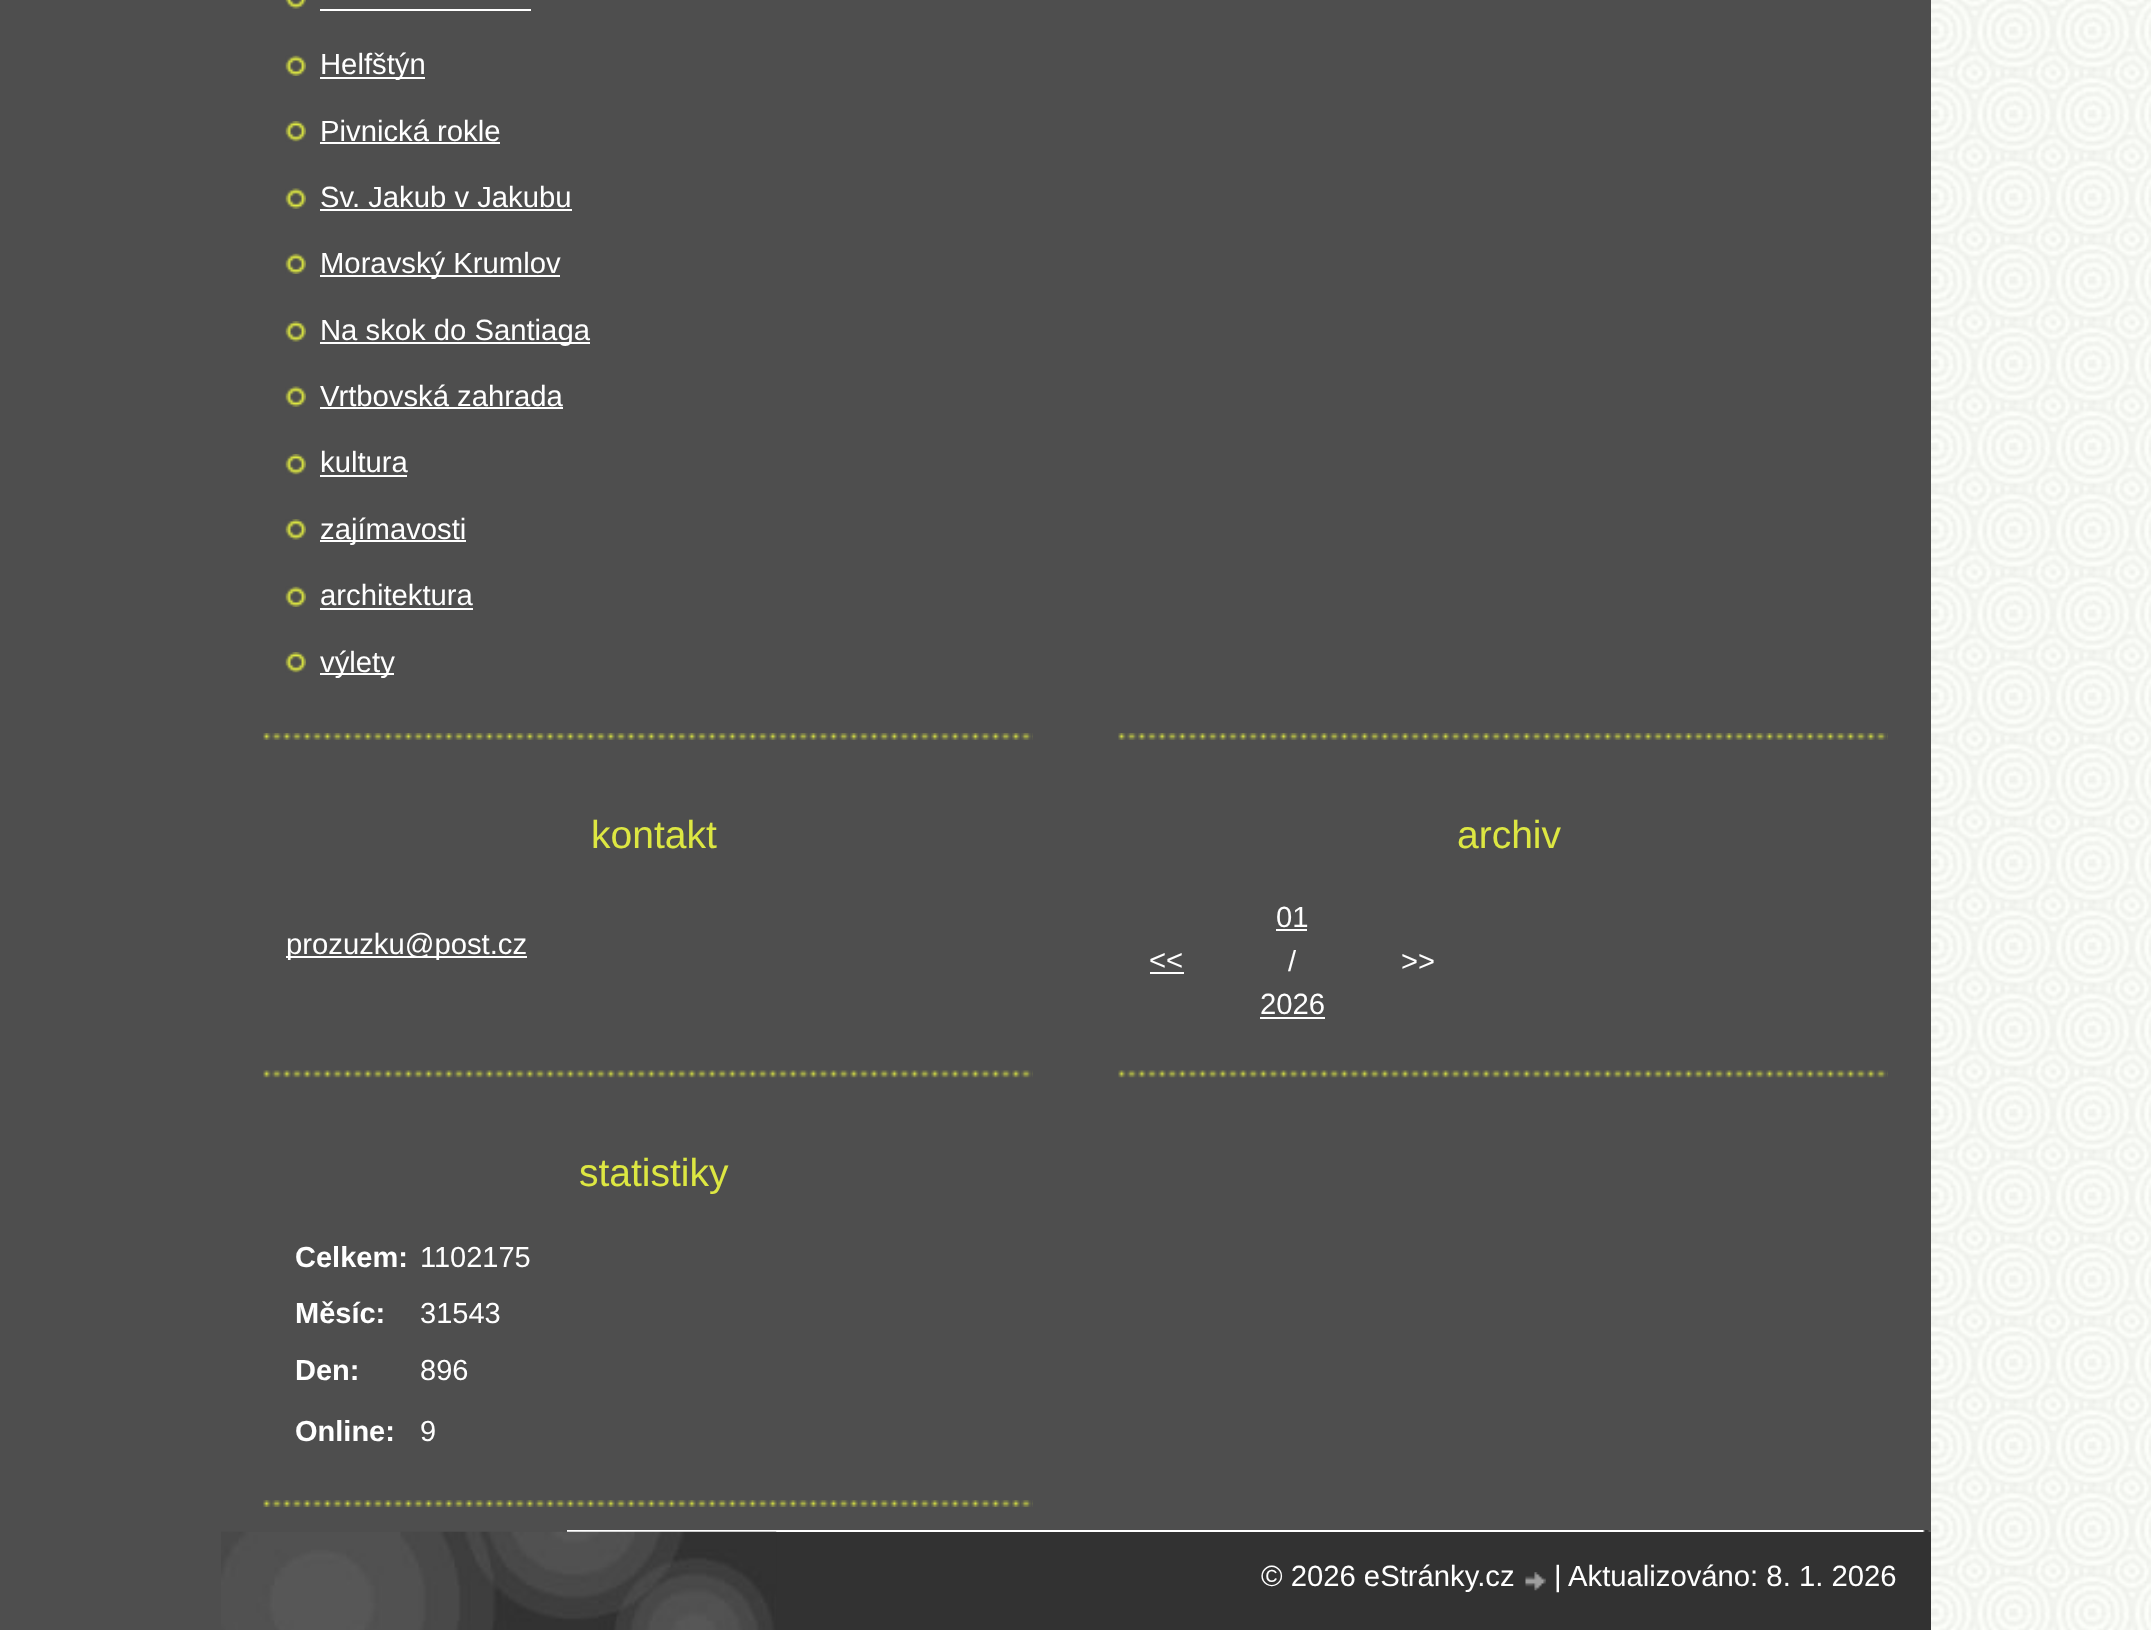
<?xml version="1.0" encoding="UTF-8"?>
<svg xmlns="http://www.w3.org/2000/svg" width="2151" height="1630">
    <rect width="100%" height="100%" fill="#4E4E4E"/>
    <image x="1931" y="0" width="220" height="1630" href="img_01.png"/>
    <image x="567" y="1530" width="1364" height="2" href="img_02.png"/>
    <image x="263" y="733" width="770" height="7" href="img_03.png"/>
    <image x="285" y="0" width="21" height="9" href="img_04.png"/>
    <rect x="320" y="9" width="211" height="2" fill="#FFFFFF"/>
    <image x="285" y="55" width="21" height="21" href="img_05.png"/>
    <rect x="320" y="77" width="105" height="2" fill="#FFFFFF"/>
    <text x="320" y="74" font-family="Liberation Sans" font-size="29.25" fill="#FFFFFF">Helfštýn</text>
    <image x="285" y="121" width="21" height="21" href="img_06.png"/>
    <text x="320" y="141" font-family="Liberation Sans" font-size="29.25" fill="#FFFFFF">Pivnická rokle</text>
    <rect x="320" y="142" width="180" height="2" fill="#FFFFFF"/>
    <image x="285" y="188" width="21" height="21" href="img_07.png"/>
    <text x="320" y="207" font-family="Liberation Sans" font-size="29.25" fill="#FFFFFF">Sv. Jakub v Jakubu</text>
    <rect x="320" y="209" width="252" height="2" fill="#FFFFFF"/>
    <image x="285" y="253" width="21" height="21" href="img_05.png"/>
    <rect x="320" y="275" width="240" height="2" fill="#FFFFFF"/>
    <text x="320" y="273" font-family="Liberation Sans" font-size="29.25" fill="#FFFFFF">Moravský Krumlov</text>
    <image x="285" y="321" width="21" height="21" href="img_08.png"/>
    <rect x="320" y="342" width="270" height="2" fill="#FFFFFF"/>
    <text x="320" y="340" font-family="Liberation Sans" font-size="29.25" fill="#FFFFFF">Na skok do Santiaga</text>
    <image x="285" y="386" width="21" height="21" href="img_07.png"/>
    <text x="320" y="406" font-family="Liberation Sans" font-size="29.25" fill="#FFFFFF">Vrtbovská zahrada</text>
    <rect x="320" y="407" width="243" height="2" fill="#FFFFFF"/>
    <image x="285" y="454" width="21" height="21" href="img_06.png"/>
    <text x="320" y="472" font-family="Liberation Sans" font-size="29.25" fill="#FFFFFF">kultura</text>
    <rect x="320" y="475" width="87" height="2" fill="#FFFFFF"/>
    <image x="285" y="519" width="21" height="21" href="img_08.png"/>
    <rect x="320" y="540" width="146" height="2" fill="#FFFFFF"/>
    <text x="320" y="539" font-family="Liberation Sans" font-size="29.25" fill="#FFFFFF">zajímavosti</text>
    <image x="285" y="586" width="21" height="21" href="img_05.png"/>
    <text x="320" y="605" font-family="Liberation Sans" font-size="29.25" fill="#FFFFFF">architektura</text>
    <rect x="320" y="608" width="153" height="2" fill="#FFFFFF"/>
    <image x="285" y="652" width="21" height="21" href="img_06.png"/>
    <rect x="320" y="673" width="74" height="2" fill="#FFFFFF"/>
    <text x="320" y="672" font-family="Liberation Sans" font-size="29.25" fill="#FFFFFF">výlety</text>
    <image x="1118" y="733" width="770" height="7" href="img_09.png"/>
    <image x="263" y="1070" width="770" height="8" href="img_10.png"/>
    <text x="591" y="848" font-family="Liberation Sans" font-size="39" fill="#DDE742">kontakt</text>
    <rect x="286" y="956" width="241" height="2" fill="#FFFFFF"/>
    <text x="286" y="954" font-family="Liberation Sans" font-size="29.25" fill="#FFFFFF">prozuzku@post.cz</text>
    <image x="1118" y="1070" width="770" height="8" href="img_11.png"/>
    <text x="1457" y="848" font-family="Liberation Sans" font-size="39" fill="#DDE742">archiv</text>
    <text x="1149" y="970" font-family="Liberation Sans" font-size="29.25" fill="#FFFFFF">&lt;&lt;</text>
    <rect x="1150" y="972" width="34" height="2" fill="#FFFFFF"/>
    <text x="1276" y="927" font-family="Liberation Sans" font-size="29.25" fill="#FFFFFF">01</text>
    <rect x="1276" y="929" width="31" height="2" fill="#FFFFFF"/>
    <text x="1288" y="971" font-family="Liberation Sans" font-size="29" fill="#FFFFFF">/</text>
    <text x="1260" y="1014" font-family="Liberation Sans" font-size="29.25" fill="#FFFFFF">2026</text>
    <rect x="1260" y="1017" width="65" height="2" fill="#FFFFFF"/>
    <text x="1401" y="971" font-family="Liberation Sans" font-size="29" fill="#FFFFFF">&gt;&gt;</text>
    <image x="263" y="1500" width="770" height="7" href="img_12.png"/>
    <text x="579" y="1186" font-family="Liberation Sans" font-size="39" fill="#DDE742">statistiky</text>
    <text x="295" y="1267" font-family="Liberation Sans" font-size="29" font-weight="700" fill="#FFFFFF">Celkem:</text>
    <text x="420" y="1267" font-family="Liberation Sans" font-size="29" fill="#FFFFFF">1102175</text>
    <text x="295" y="1323" font-family="Liberation Sans" font-size="29" font-weight="700" fill="#FFFFFF">Měsíc:</text>
    <text x="420" y="1323" font-family="Liberation Sans" font-size="29" fill="#FFFFFF">31543</text>
    <text x="295" y="1380" font-family="Liberation Sans" font-size="29" font-weight="700" fill="#FFFFFF">Den:</text>
    <text x="420" y="1380" font-family="Liberation Sans" font-size="29" fill="#FFFFFF">896</text>
    <text x="295" y="1441" font-family="Liberation Sans" font-size="29" font-weight="700" fill="#FFFFFF">Online:</text>
    <text x="420" y="1441" font-family="Liberation Sans" font-size="29" fill="#FFFFFF">9</text>
    <rect x="776" y="1532" width="1155" height="98" fill="#323232"/>
    <image x="221" y="1531" width="556" height="99" href="img_13.png"/>
    <text x="1261" y="1586" font-family="Liberation Sans" font-size="29.25" fill="#FFFFFF">© 2026 eStránky.cz</text>
    <image x="1525" y="1572" width="21" height="19" href="img_14.png"/>
    <text x="1554" y="1586" font-family="Liberation Sans" font-size="29.25" fill="#FFFFFF">|</text>
    <text x="1568" y="1586" font-family="Liberation Sans" font-size="29.25" fill="#FFFFFF">Aktualizováno: 8. 1. 2026</text>
</svg>
